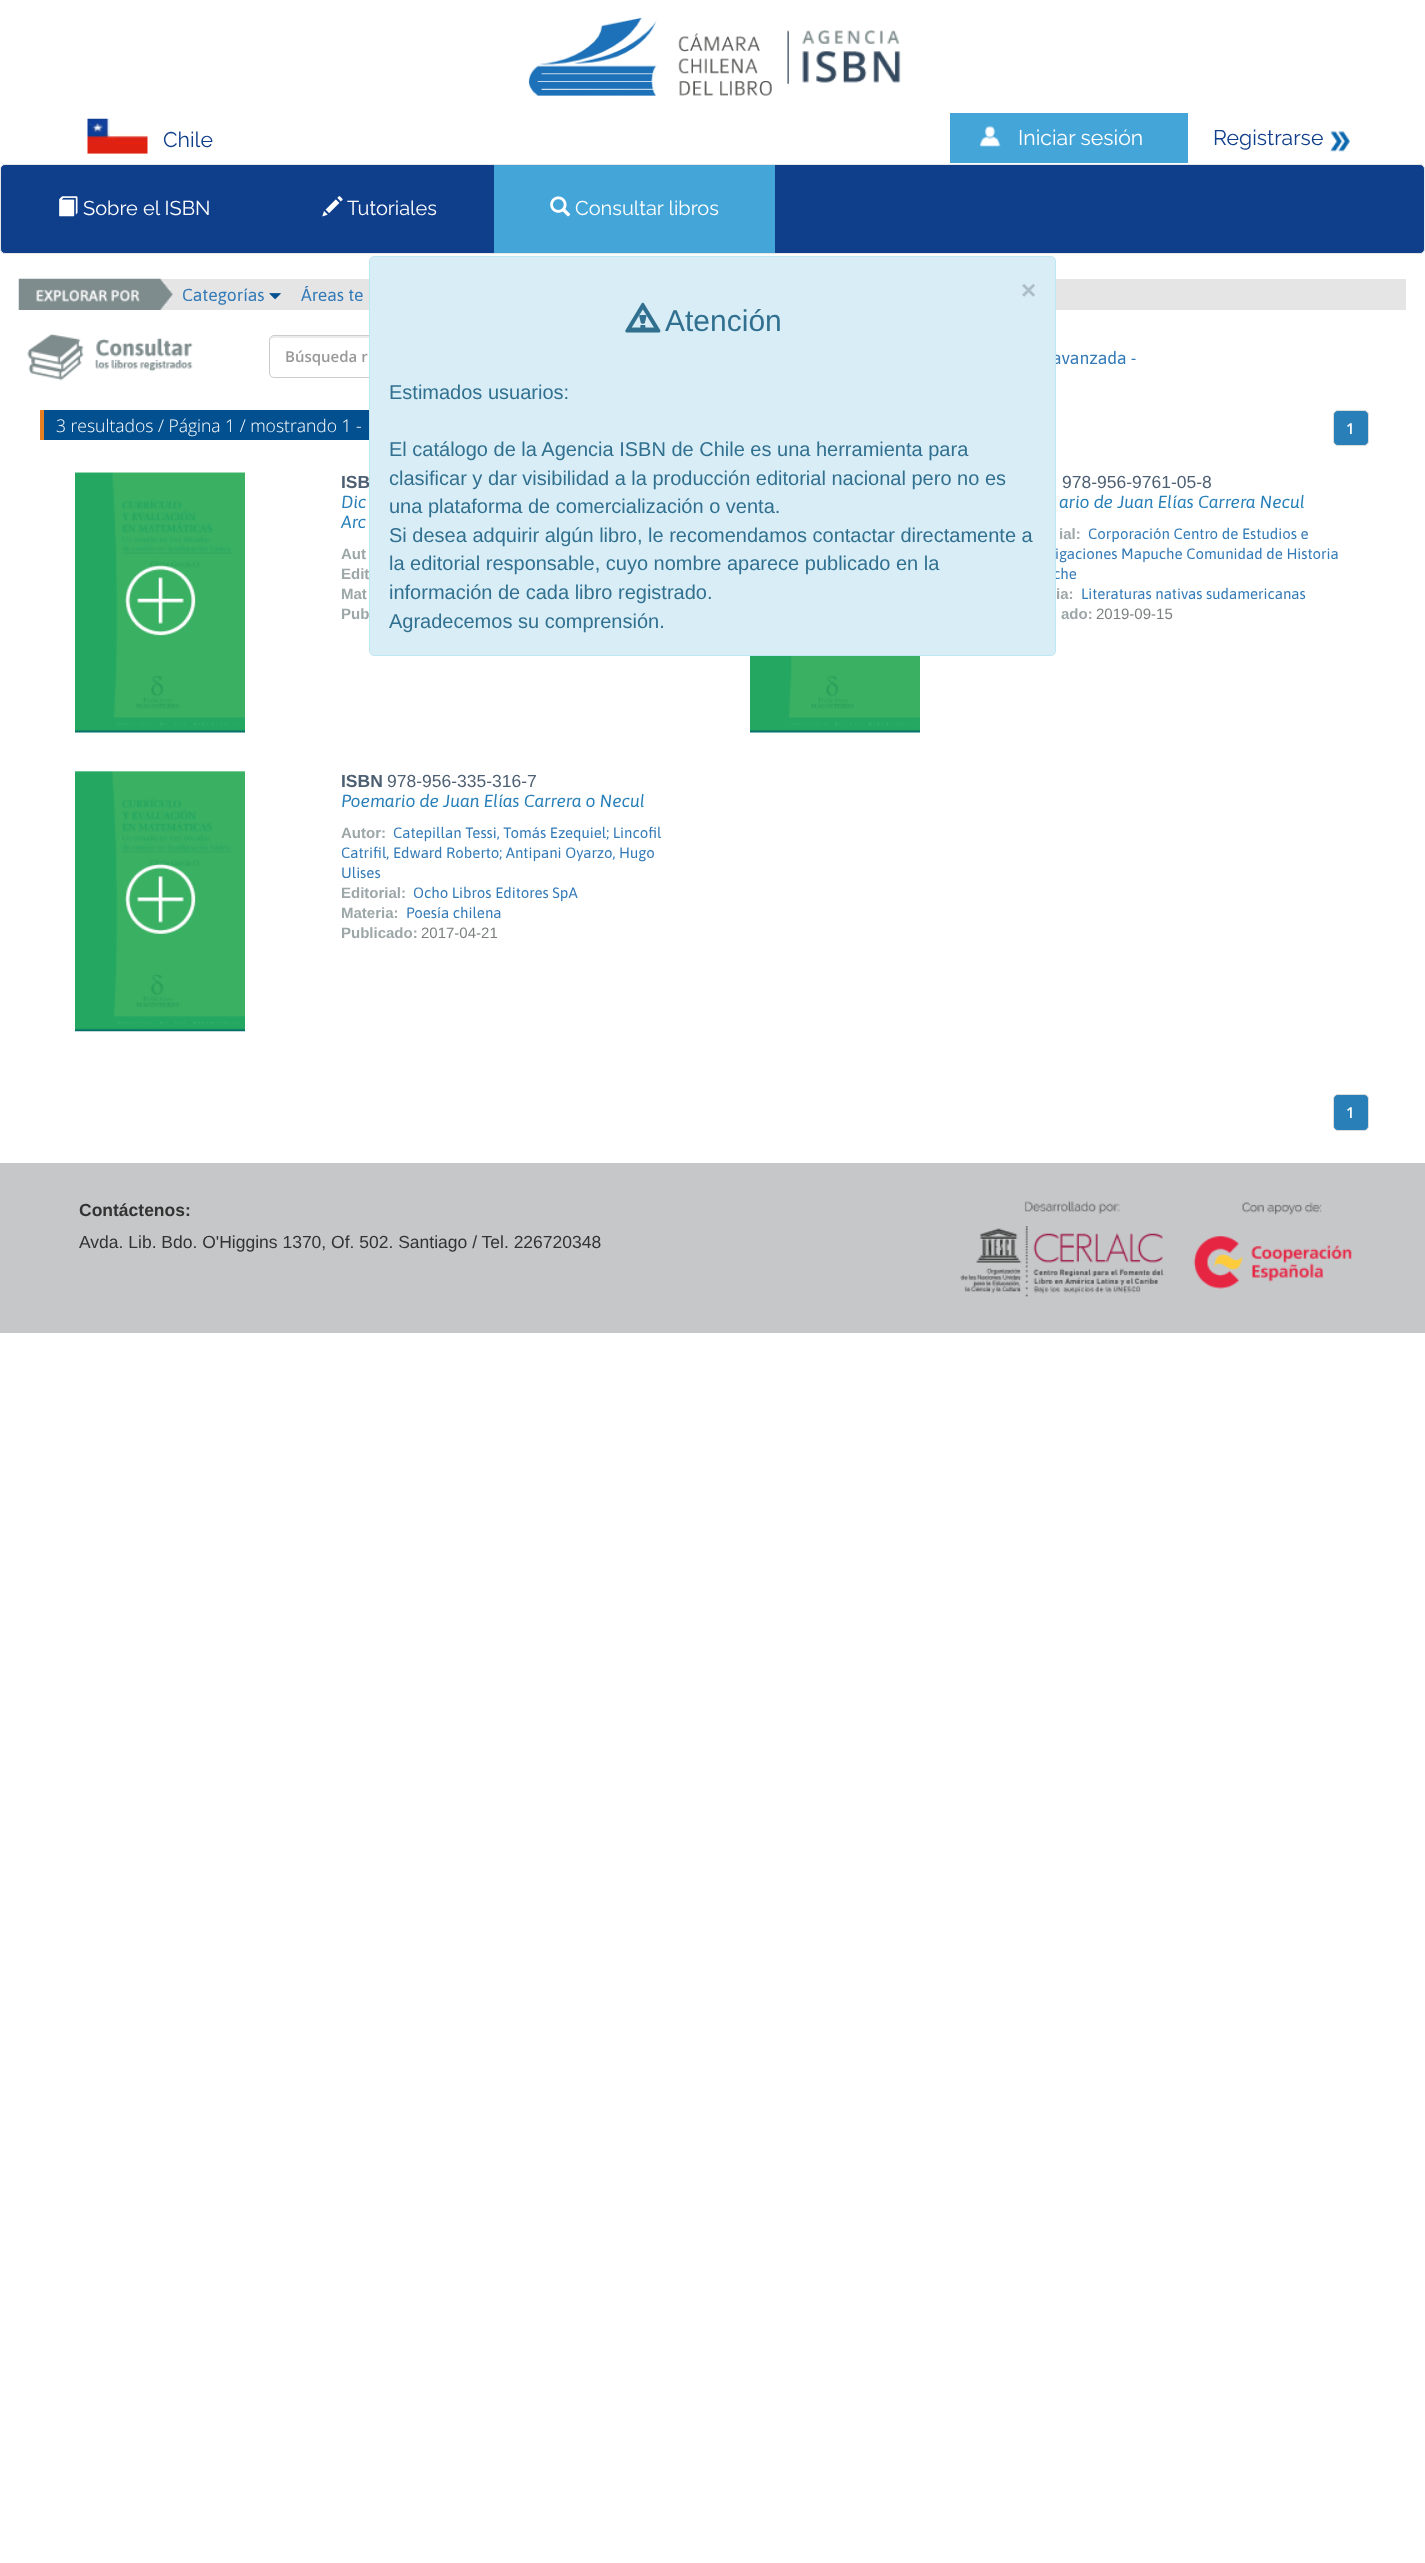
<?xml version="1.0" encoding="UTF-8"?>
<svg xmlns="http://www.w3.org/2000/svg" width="1425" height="2563">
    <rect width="100%" height="100%" fill="#FFFFFF"/>
    <image x="528" y="17" width="244" height="79" href="img_01.png"/>
    <image x="787" y="30" width="114" height="54" href="img_02.png"/>
    <image x="87" y="118" width="61" height="36" href="img_03.png"/>
    <text x="163" y="147" font-family="Raleway" font-size="21.25" font-weight="100" fill="#0F3E8B">Chile</text>
    <rect x="950" y="113" width="238" height="50" fill="#44A5D9"/>
    <image x="979" y="126" width="22" height="21" href="img_04.png"/>
    <text x="1018" y="145" font-family="Raleway" font-size="21.25" font-weight="100" fill="#FFFFFF">Iniciar sesión</text>
    <text x="1213" y="145" font-family="Raleway" font-size="21.25" font-weight="100" fill="#0F3E8B">Registrarse</text>
    <image x="1330" y="131" width="20" height="21" href="img_05.png"/>
    <rect x="0.5" y="164.5" width="1424" height="89" rx="4.5" fill="#0F3E8B" stroke="#E7E7E7"/>
    <image x="59" y="196" width="19" height="21" href="img_06.png"/>
    <text x="83" y="215" font-family="Raleway" font-size="20" font-weight="100" fill="#FFFFFF">Sobre el ISBN</text>
    <image x="322" y="196" width="21" height="21" href="img_07.png"/>
    <text x="347" y="215" font-family="Raleway" font-size="20" font-weight="100" fill="#FFFFFF">Tutoriales</text>
    <rect x="494" y="165" width="281" height="88" fill="#44A5D9"/>
    <image x="550" y="196" width="21" height="21" href="img_08.png"/>
    <text x="575" y="215" font-family="Raleway" font-size="20" font-weight="100" fill="#FFFFFF">Consultar libros</text>
    <rect x="161" y="279" width="1245" height="31" fill="#E5E5E5"/>
    <image x="18" y="278" width="155" height="32" href="img_09.png"/>
    <text x="182" y="301" font-family="Asap" font-size="17.5" fill="#337AB7">Categorías</text>
    <image x="269" y="293" width="12" height="7" href="img_10.png"/>
    <text x="301" y="301" font-family="Asap" font-size="17.5" fill="#337AB7">Áreas te</text>
    <image x="27" y="333" width="166" height="48" href="img_11.png"/>
    <path d="M 274 338 H 875 V 336 H 274 C 271 336 270 338 270 341 C 270 339 272 338 274 338 Z" fill="#ECECEC"/>
    <path d="M 274 335.5 H 875.5 V 377.5 H 274 C 271.5 377.5 269.5 375.5 269.5 373 V 340 C 269.5 337.5 271.5 335.5 274 335.5 Z" fill="none" stroke="#CCCCCC"/>
    <text x="285" y="362" font-family="Open Sans" font-size="15" font-weight="600" fill="#999999">Búsqueda r</text>
    <text x="1052" y="364" font-family="Asap" font-size="17.5" fill="#337AB7">avanzada -</text>
    <rect x="44" y="410" width="325" height="30" fill="#02508F"/>
    <text x="56" y="432" font-family="Open Sans" font-size="17.5" font-weight="300" fill="#FFFFFF">3 resultados / Página 1 / mostrando 1 -</text>
    <rect x="40" y="410" width="4" height="30" fill="#E67E22"/>
    <rect x="1333.5" y="410.5" width="35" height="35" rx="4.5" fill="#2980B9" stroke="#DDDDDD"/>
    <text x="1346" y="434" font-family="Open Sans" font-size="15" font-weight="600" fill="#FFFFFF">1</text>
    <image x="75" y="472" width="170" height="261" href="img_12.png"/>
    <text x="341" y="488" font-family="Liberation Sans" font-size="17.5" font-weight="700" fill="#4D5F72">ISB</text>
    <text font-family="Asap" font-size="17.5" font-style="italic" fill="#2980B9">
        <tspan x="341" y="508">Dic</tspan>
        <tspan x="341" y="528">Arc</tspan>
    </text>
    <text font-family="Liberation Sans" font-size="15" font-weight="700" fill="#9DA7A8">
        <tspan x="341" y="559">Aut</tspan>
        <tspan x="341" y="579">Edit</tspan>
        <tspan x="341" y="599">Mat</tspan>
        <tspan x="341" y="619">Pub</tspan>
    </text>
    <text x="1062" y="488" font-family="Liberation Sans" font-size="17.5" fill="#4D5F72">978-956-9761-05-8</text>
    <text x="1059" y="508" font-family="Asap" font-size="17.5" font-style="italic" fill="#2980B9">ario de Juan Elías Carrera Necul</text>
    <text x="1059" y="539" font-family="Liberation Sans" font-size="15" font-weight="700" fill="#9DA7A8">ial:</text>
    <text x="1088" y="539" font-family="Asap" font-size="15" fill="#337AB7">Corporación Centro de Estudios e</text>
    <text x="1055" y="559" font-family="Asap" font-size="15" fill="#337AB7">igaciones Mapuche Comunidad de Historia</text>
    <text x="1053" y="579" font-family="Asap" font-size="15" fill="#337AB7">che</text>
    <text x="1056" y="599" font-family="Liberation Sans" font-size="15" font-weight="700" fill="#9DA7A8">ia:</text>
    <text x="1081" y="599" font-family="Asap" font-size="15" fill="#337AB7">Literaturas nativas sudamericanas</text>
    <text x="1061" y="619" font-family="Liberation Sans" font-size="15" font-weight="700" fill="#9DA7A8">ado:</text>
    <text x="1096" y="619" font-family="Liberation Sans" font-size="15" fill="#7C807D">2019-09-15</text>
    <image x="750" y="656" width="170" height="77" href="img_13.png"/>
    <image x="75" y="771" width="170" height="261" href="img_14.png"/>
    <text x="341" y="787" font-family="Liberation Sans" font-size="17.5" font-weight="700" fill="#4D5F72">ISBN</text>
    <text x="387" y="787" font-family="Liberation Sans" font-size="17.5" fill="#4D5F72">978-956-335-316-7</text>
    <text x="341" y="807" font-family="Asap" font-size="17.5" font-style="italic" fill="#2980B9">Poemario de Juan Elías Carrera o Necul</text>
    <text x="341" y="838" font-family="Liberation Sans" font-size="15" font-weight="700" fill="#9DA7A8">Autor:</text>
    <text x="393" y="838" font-family="Asap" font-size="15" fill="#337AB7">Catepillan Tessi, Tomás Ezequiel; Lincofil</text>
    <text font-family="Asap" font-size="15" fill="#337AB7">
        <tspan x="341" y="858">Catrifil, Edward Roberto; Antipani Oyarzo, Hugo</tspan>
        <tspan x="341" y="878">Ulises</tspan>
    </text>
    <text x="341" y="898" font-family="Liberation Sans" font-size="15" font-weight="700" fill="#9DA7A8">Editorial:</text>
    <text x="413" y="898" font-family="Asap" font-size="15" fill="#337AB7">Ocho Libros Editores SpA</text>
    <text x="341" y="918" font-family="Liberation Sans" font-size="15" font-weight="700" fill="#9DA7A8">Materia:</text>
    <text x="406" y="918" font-family="Asap" font-size="15" fill="#337AB7">Poesía chilena</text>
    <text x="341" y="938" font-family="Liberation Sans" font-size="15" font-weight="700" fill="#9DA7A8">Publicado:</text>
    <text x="421" y="938" font-family="Liberation Sans" font-size="15" fill="#7C807D">2017-04-21</text>
    <rect x="1333.5" y="1094.5" width="35" height="36" rx="4.5" fill="#2980B9" stroke="#DDDDDD"/>
    <text x="1346" y="1118" font-family="Open Sans" font-size="15" font-weight="600" fill="#FFFFFF">1</text>
    <rect x="0" y="1163" width="1425" height="170" fill="#C6C7C8"/>
    <text x="79" y="1216" font-family="Liberation Sans" font-size="17.5" font-weight="700" fill="#333333">Contáctenos:</text>
    <text x="79" y="1248" font-family="Liberation Sans" font-size="17.5" fill="#333333">Avda. Lib. Bdo. O'Higgins 1370, Of. 502. Santiago / Tel. 226720348</text>
    <image x="960" y="1201" width="392" height="96" href="img_15.png"/>
    <rect x="369.5" y="256.5" width="686" height="399" rx="4.5" fill="#D9EDF7" stroke="#BCE8F1"/>
    <text x="1021" y="299" font-family="Liberation Sans" font-size="26" font-weight="700" fill="#AEBEC6">×</text>
    <image x="625" y="302" width="36" height="31" href="img_16.png"/>
    <text x="665" y="331" font-family="Liberation Sans" font-size="30" fill="#31708F">Atención</text>
    <text x="389" y="399" font-family="Liberation Sans" font-size="20" fill="#31708F">Estimados usuarios:</text>
    <text font-family="Liberation Sans" font-size="20" fill="#31708F">
        <tspan x="389" y="456">El catálogo de la Agencia ISBN de Chile es una herramienta para</tspan>
        <tspan x="389" y="485">clasificar y dar visibilidad a la producción editorial nacional pero no es</tspan>
        <tspan x="389" y="513">una plataforma de comercialización o venta.</tspan>
        <tspan x="389" y="542">Si desea adquirir algún libro, le recomendamos contactar directamente a</tspan>
        <tspan x="389" y="570">la editorial responsable, cuyo nombre aparece publicado en la</tspan>
        <tspan x="389" y="599">información de cada libro registrado.</tspan>
        <tspan x="389" y="628">Agradecemos su comprensión.</tspan>
    </text>
</svg>
